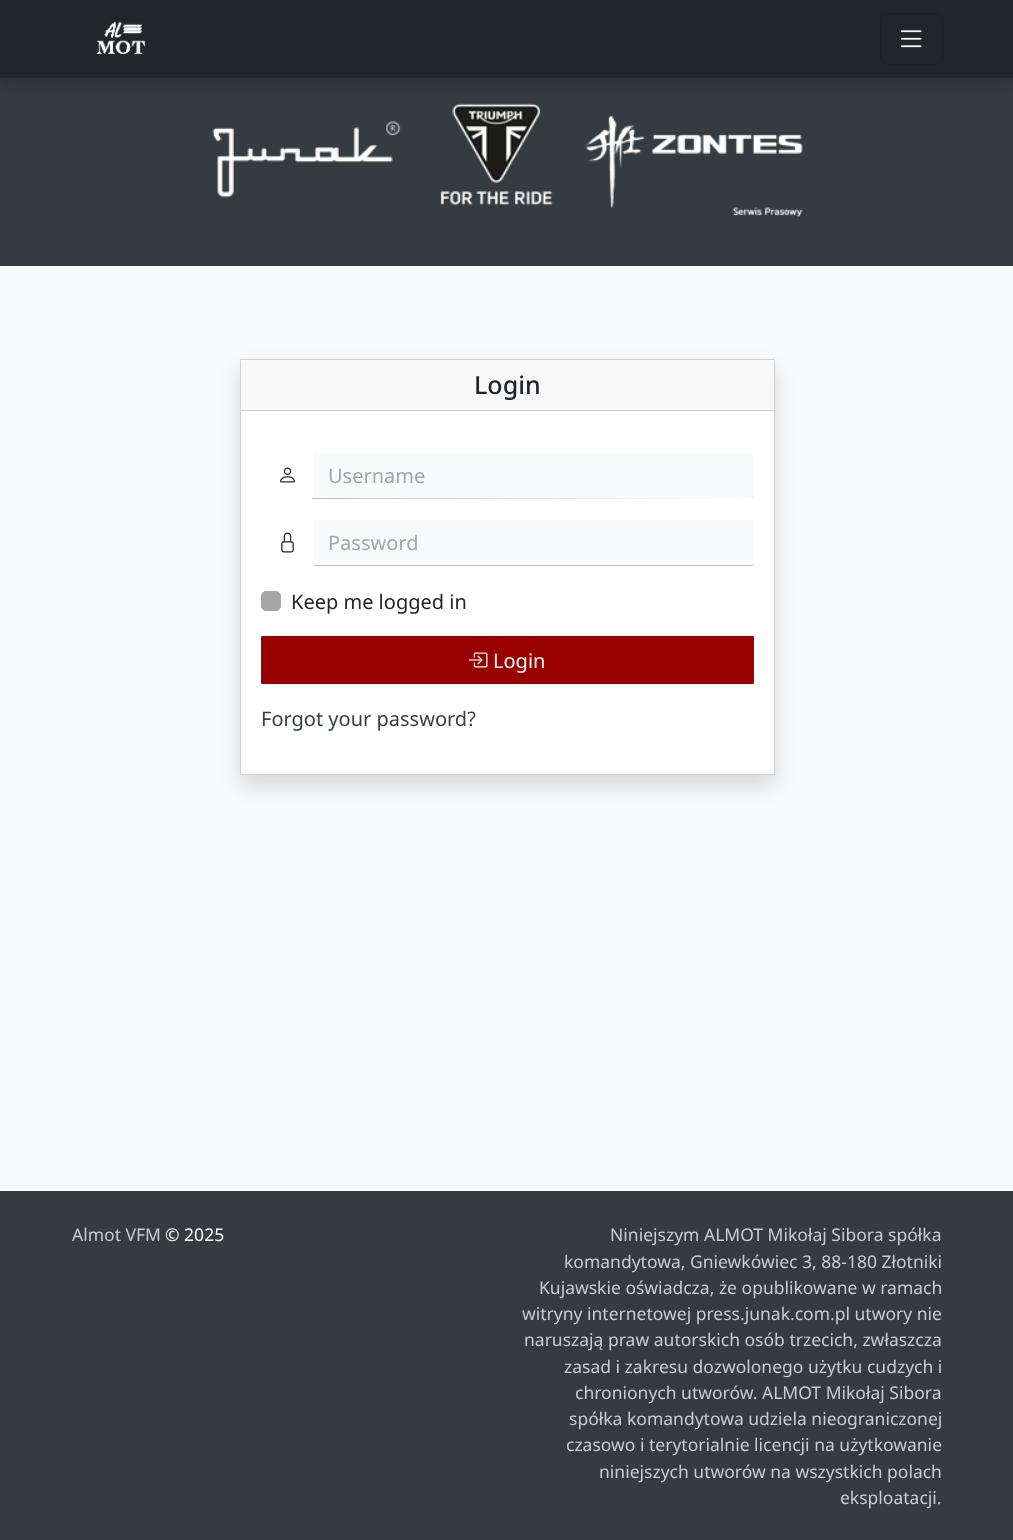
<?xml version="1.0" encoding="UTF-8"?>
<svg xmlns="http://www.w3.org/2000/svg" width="1013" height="1540">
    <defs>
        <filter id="blur1" x="-50%" y="-200%" width="200%" height="500%"><feGaussianBlur stdDeviation="10"/></filter>
    </defs>
    <rect width="100%" height="100%" fill="#F9FAFB"/>
    <rect x="0" y="78" width="1013" height="188" fill="#343B41"/>
    <image x="212" y="103" width="591" height="115" href="img_03.png"/>
    <rect x="0" y="10" width="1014" height="78" fill="#000000" fill-opacity="0.15" filter="url(#blur1)"/>
    <rect x="0" y="0" width="1013" height="78" fill="#22262A"/>
    <image x="96" y="21" width="49" height="33" href="img_01.png"/>
    <rect x="880.5" y="13.5" width="62" height="51" rx="7.5" fill="none" stroke="#1D2024"/>
    <image x="901" y="30" width="21" height="18" href="img_02.png"/>
    <rect x="240" y="369" width="535" height="416" fill="#000000" fill-opacity="0.15" filter="url(#blur1)"/>
    <rect x="240.5" y="359.5" width="534" height="415" fill="#FFFFFF" stroke="#D2D2D2"/>
    <path d="M 247 360 H 768 C 771.5 360 774 362.5 774 366 V 411 H 241 V 366 C 241 362.5 243.5 360 247 360 Z" fill="#F8F8F9"/>
    <rect x="241" y="410" width="533" height="1" fill="#CCCCCD"/>
    <text x="474" y="394" font-family="Noto Sans" font-size="25" font-weight="500" fill="#212529">Login</text>
    <image x="280" y="467" width="15" height="16" href="img_04.png"/>
    <rect x="314" y="453" width="439" height="45" fill="#F9FAFB"/>
    <path d="M 754 498 L 312 499 L 314 497 V 498 H 752 V 497 Z" fill="#000000" fill-opacity="0.25"/>
    <text x="328" y="483" font-family="Noto Sans" font-size="20" fill="#A3A5A7">Username</text>
    <image x="281" y="532" width="13" height="21" href="img_05.png"/>
    <rect x="314" y="520" width="439" height="45" fill="#F9FAFB"/>
    <path d="M 753 566 H 313 L 314 565 H 752 V 564 Z" fill="#BFBFBF"/>
    <text x="328" y="550" font-family="Noto Sans" font-size="20" fill="#A3A5A7">Password</text>
    <rect x="261.5" y="591.5" width="19" height="19" rx="4.5" fill="#A6A6A6" stroke="#A6A6A6"/>
    <text x="291" y="609" font-family="Noto Sans" font-size="20" fill="#212529">Keep me logged in</text>
    <rect x="261.5" y="636.5" width="492" height="47" rx="0.5" fill="#990000" stroke="#990000"/>
    <image x="468" y="652" width="20" height="16" href="img_06.png"/>
    <text x="493" y="668" font-family="Noto Sans" font-size="20" fill="#F8F9FA">Login</text>
    <text x="261" y="726" font-family="Noto Sans" font-size="20" fill="#374048">Forgot your password?</text>
    <rect x="0" y="1191" width="1013" height="349" fill="#343B41"/>
    <text x="72" y="1241" font-family="Noto Sans" font-size="17.5" fill="#C7CDD0">Almot VFM</text>
    <text x="165" y="1241" font-family="Noto Sans" font-size="17.5" fill="#F8F9FA">© 2025</text>
    <text x="610" y="1241" font-family="Noto Sans" font-size="17.5" fill="#C7CDD0">Niniejszym ALMOT Mikołaj Sibora spółka</text>
    <text x="564" y="1268" font-family="Noto Sans" font-size="17.5" fill="#C7CDD0">komandytowa, Gniewkówiec 3, 88-180 Złotniki</text>
    <text x="539" y="1294" font-family="Noto Sans" font-size="17.5" fill="#C7CDD0">Kujawskie oświadcza, że opublikowane w ramach</text>
    <text x="522" y="1320" font-family="Noto Sans" font-size="17.5" fill="#C7CDD0">witryny internetowej press.junak.com.pl utwory nie</text>
    <text x="524" y="1346" font-family="Noto Sans" font-size="17.5" fill="#C7CDD0">naruszają praw autorskich osób trzecich, zwłaszcza</text>
    <text x="564" y="1373" font-family="Noto Sans" font-size="17.5" fill="#C7CDD0">zasad i zakresu dozwolonego użytku cudzych i</text>
    <text x="575" y="1399" font-family="Noto Sans" font-size="17.5" fill="#C7CDD0">chronionych utworów. ALMOT Mikołaj Sibora</text>
    <text x="569" y="1425" font-family="Noto Sans" font-size="17.5" fill="#C7CDD0">spółka komandytowa udziela nieograniczonej</text>
    <text x="566" y="1451" font-family="Noto Sans" font-size="17.5" fill="#C7CDD0">czasowo i terytorialnie licencji na użytkowanie</text>
    <text x="599" y="1478" font-family="Noto Sans" font-size="17.5" fill="#C7CDD0">niniejszych utworów na wszystkich polach</text>
    <text x="840" y="1504" font-family="Noto Sans" font-size="17.5" fill="#C7CDD0">eksploatacji.</text>
</svg>
